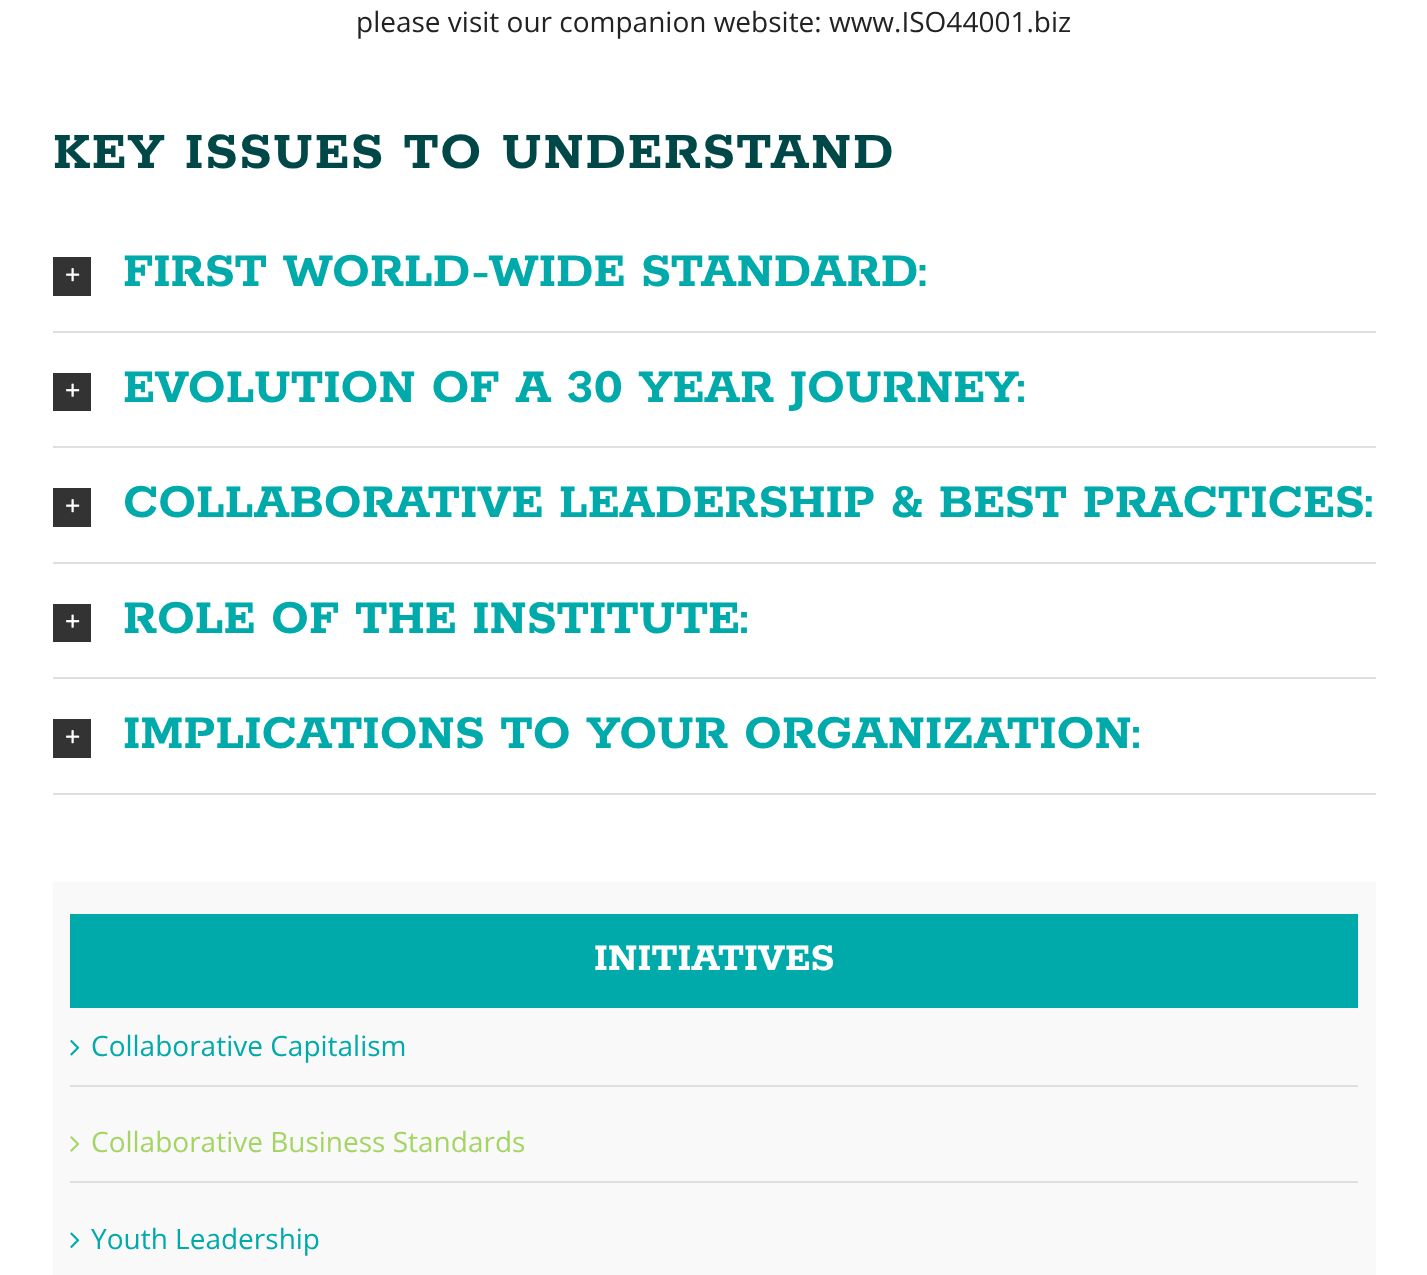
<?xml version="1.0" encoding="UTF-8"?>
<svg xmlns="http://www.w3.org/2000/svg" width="1427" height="1275">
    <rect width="100%" height="100%" fill="#FFFFFF"/>
    <text x="356" y="32" font-family="Open Sans" font-size="28" fill="#222222">please visit our companion website: www.ISO44001.biz</text>
    <text x="53" y="168" font-family="Rokkitt" font-size="56.75" font-weight="700" letter-spacing="1.75" fill="#004848">KEY ISSUES TO UNDERSTAND</text>
    <rect x="53" y="331" width="1323" height="2" fill="#E0DEDE"/>
    <rect x="53" y="257" width="38" height="39" fill="#333333"/>
    <image x="66" y="268" width="14" height="14" href="img_01.png"/>
    <text x="123" y="286" font-family="Rokkitt" font-size="52.5" font-weight="700" fill="#00AAAB">FIRST WORLD-WIDE STANDARD:</text>
    <rect x="53" y="446" width="1323" height="2" fill="#E0DEDE"/>
    <rect x="53" y="373" width="38" height="38" fill="#333333"/>
    <image x="66" y="383" width="14" height="14" href="img_02.png"/>
    <text x="123" y="402" font-family="Rokkitt" font-size="52.5" font-weight="700" fill="#00AAAB">EVOLUTION OF A 30 YEAR JOURNEY:</text>
    <rect x="53" y="562" width="1323" height="2" fill="#E0DEDE"/>
    <rect x="53" y="488" width="38" height="39" fill="#333333"/>
    <image x="66" y="499" width="14" height="14" href="img_01.png"/>
    <text x="123" y="517" font-family="Rokkitt" font-size="52.5" font-weight="700" fill="#00AAAB">COLLABORATIVE LEADERSHIP &amp; BEST PRACTICES:</text>
    <rect x="53" y="677" width="1323" height="2" fill="#E0DEDE"/>
    <rect x="53" y="604" width="38" height="38" fill="#333333"/>
    <image x="66" y="614" width="14" height="14" href="img_02.png"/>
    <text x="123" y="633" font-family="Rokkitt" font-size="52.5" font-weight="700" fill="#00AAAB">ROLE OF THE INSTITUTE:</text>
    <rect x="53" y="793" width="1323" height="2" fill="#E0DEDE"/>
    <rect x="53" y="719" width="38" height="39" fill="#333333"/>
    <image x="66" y="730" width="14" height="14" href="img_01.png"/>
    <text x="123" y="748" font-family="Rokkitt" font-size="52.5" font-weight="700" fill="#00AAAB">IMPLICATIONS TO YOUR ORGANIZATION:</text>
    <rect x="53" y="882" width="1323" height="393" fill="#F9F9F9"/>
    <rect x="70" y="914" width="1288" height="94" fill="#00AAAB"/>
    <text x="594" y="970" font-family="Rokkitt" font-size="42" font-weight="700" fill="#FFFFFF">INITIATIVES</text>
    <rect x="70" y="1085" width="1288" height="2" fill="#E0DEDE"/>
    <image x="70" y="1040" width="10" height="16" href="img_03.png"/>
    <text x="91" y="1056" font-family="Open Sans" font-size="28" fill="#00AAAB">Collaborative Capitalism</text>
    <rect x="70" y="1181" width="1288" height="2" fill="#E0DEDE"/>
    <image x="70" y="1136" width="10" height="16" href="img_04.png"/>
    <text x="91" y="1152" font-family="Open Sans" font-size="28" fill="#A4D564">Collaborative Business Standards</text>
    <image x="70" y="1232" width="10" height="16" href="img_05.png"/>
    <text x="91" y="1249" font-family="Open Sans" font-size="28" fill="#00AAAB">Youth Leadership</text>
</svg>
